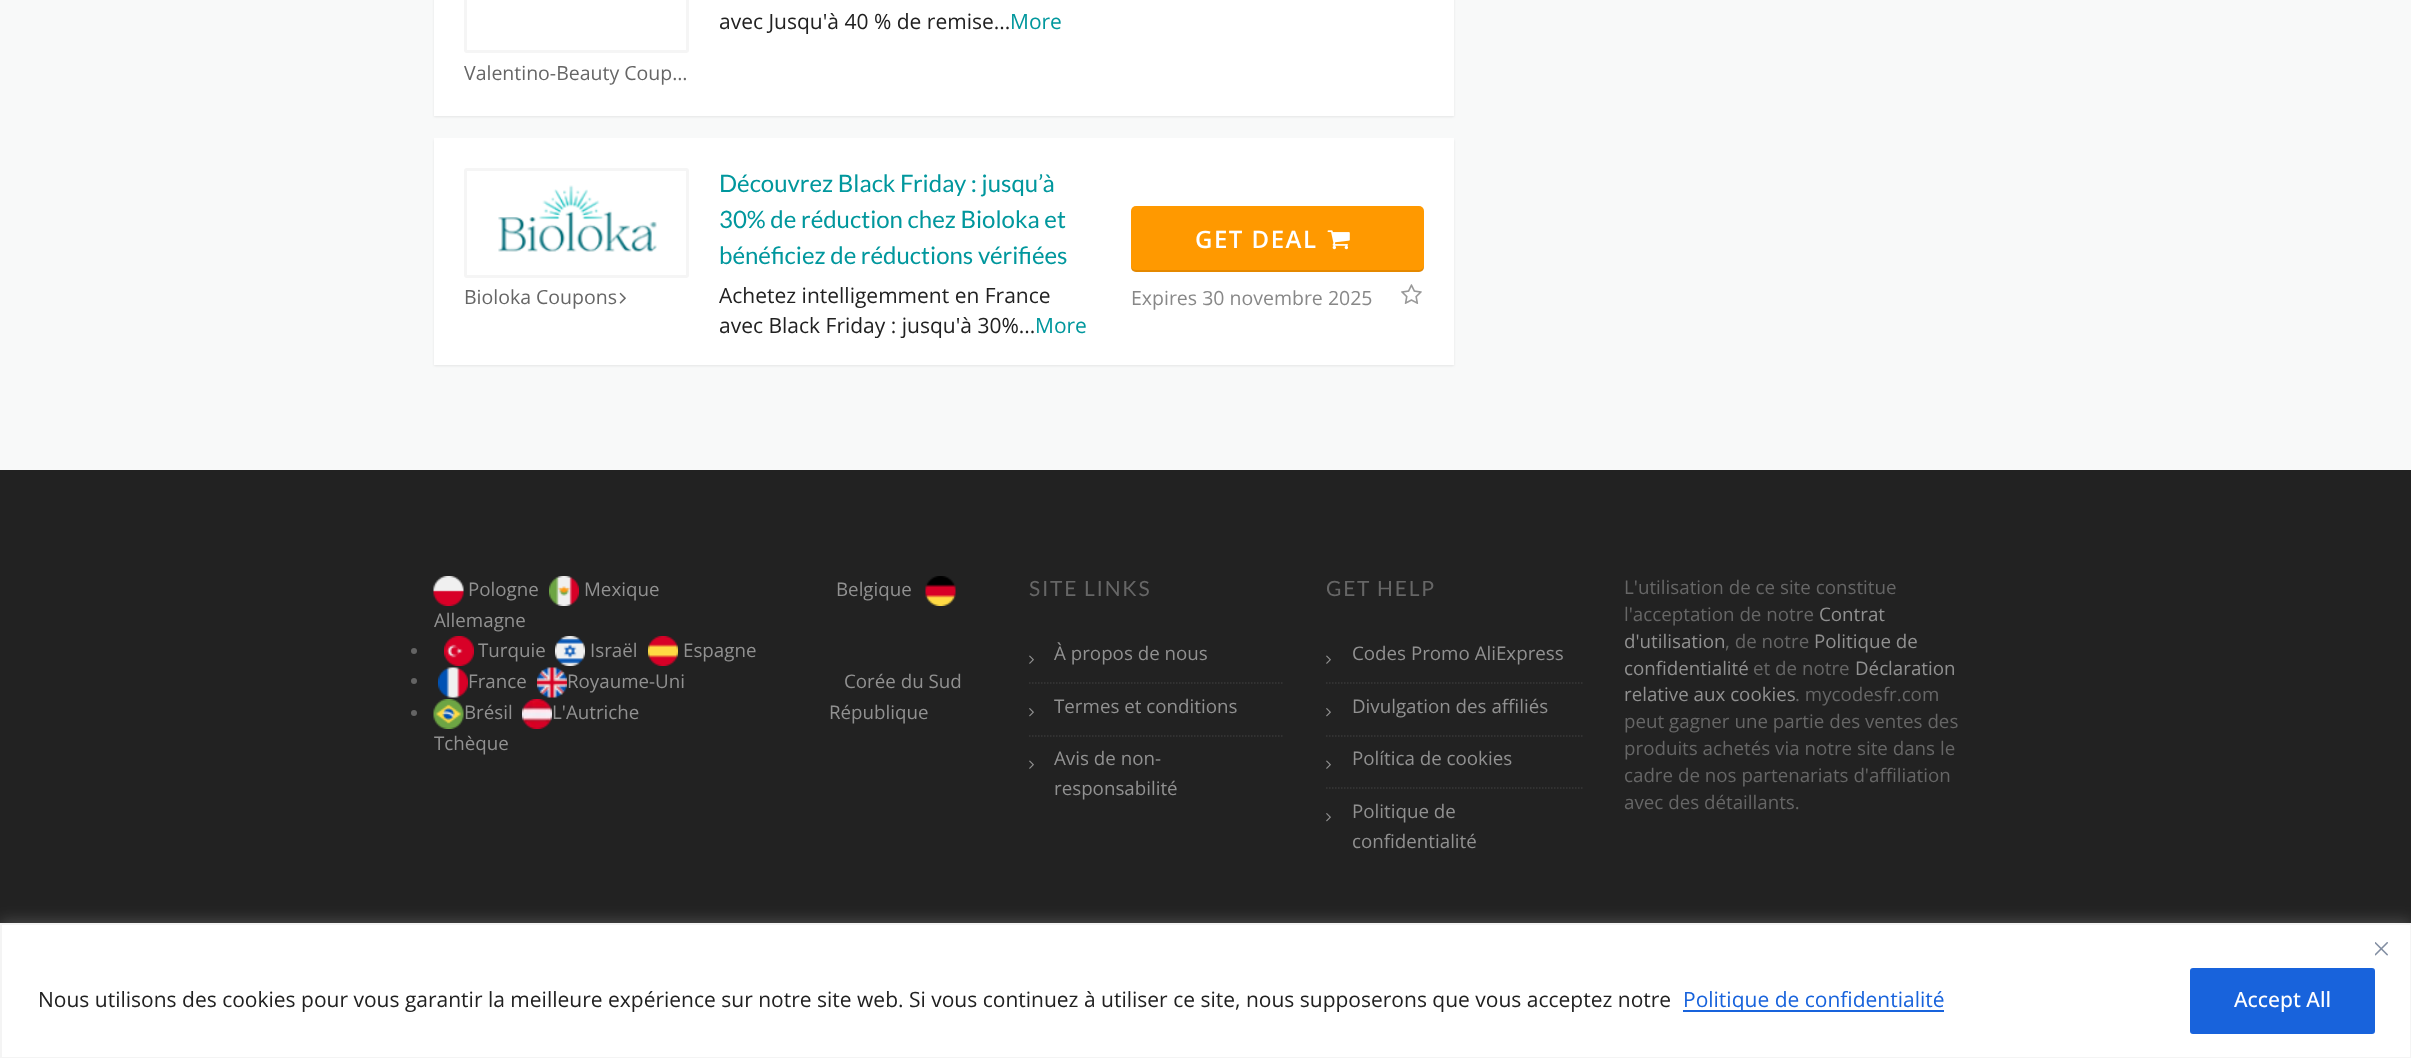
<?xml version="1.0" encoding="UTF-8"?>
<svg xmlns="http://www.w3.org/2000/svg" width="2411" height="1058">
    <defs>
        <filter id="blur1" x="-50%" y="-200%" width="200%" height="500%"><feGaussianBlur stdDeviation="1"/></filter>
        <filter id="blur2" x="-50%" y="-200%" width="200%" height="500%"><feGaussianBlur stdDeviation="7.5"/></filter>
    </defs>
    <rect width="100%" height="100%" fill="#F8F9F9"/>
    <rect x="434" y="-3" width="1020" height="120" fill="#000000" fill-opacity="0.08" filter="url(#blur1)"/>
    <rect x="434" y="0" width="1020" height="116" fill="#FFFFFF"/>
    <text x="719" y="29" font-family="Open Sans" font-size="21" fill="#212121">avec Jusqu'à 40 % de remise...</text>
    <text x="1010" y="29" font-family="Open Sans" font-size="21" fill="#00979D">More</text>
    <rect x="465.5" y="-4.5" width="222" height="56" rx="1.5" fill="none" stroke="#F5F5F5" stroke-width="3"/>
    <text x="464" y="80" font-family="Open Sans" font-size="19.5" fill="#666666">Valentino-Beauty Coup…</text>
    <rect x="434" y="140" width="1020" height="226" fill="#000000" fill-opacity="0.08" filter="url(#blur1)"/>
    <rect x="434" y="138" width="1020" height="227" fill="#FFFFFF"/>
    <rect x="465.5" y="169.5" width="222" height="107" rx="1.5" fill="none" stroke="#F5F5F5" stroke-width="3"/>
    <image x="498" y="185" width="159" height="67" href="img_01.png"/>
    <text x="464" y="304" font-family="Open Sans" font-size="19.5" fill="#666666">Bioloka Coupons</text>
    <image x="619" y="292" width="7" height="12" href="img_02.png"/>
    <text font-family="Lato" font-size="24" fill="#00979D">
        <tspan x="719" y="192">Découvrez Black Friday : jusqu’à</tspan>
        <tspan x="719" y="228">30% de réduction chez Bioloka et</tspan>
        <tspan x="719" y="264">bénéficiez de réductions vérifiées</tspan>
    </text>
    <text font-family="Open Sans" font-size="21" fill="#212121">
        <tspan x="719" y="303">Achetez intelligemment en France</tspan>
        <tspan x="719" y="333">avec Black Friday : jusqu'à 30%...</tspan>
    </text>
    <text x="1035" y="333" font-family="Open Sans" font-size="21" fill="#00979D">More</text>
    <rect x="1131" y="206" width="293" height="66" rx="5" fill="#FF9900"/>
    <path d="M 1131 266 V 267 C 1131 270 1133 272 1136 272 H 1419 C 1422 272 1424 270 1424 267 V 266 C 1424 268 1421 270 1419 270 H 1136 C 1133 270 1131 268 1131 266 Z" fill="#000000" fill-opacity="0.1"/>
    <text x="1195" y="248" font-family="Open Sans" font-size="24" font-weight="600" letter-spacing="1.5" fill="#FFFFFF">GET DEAL</text>
    <image x="1327" y="230" width="23" height="20" href="img_03.png"/>
    <text x="1131" y="305" font-family="Open Sans" font-size="19.5" fill="#888888">Expires 30 novembre 2025</text>
    <image x="1401" y="284" width="21" height="20" href="img_04.png"/>
    <rect x="0" y="470" width="2411" height="453" fill="#222222"/>
    <image x="433" y="576" width="31" height="30" href="img_05.png"/>
    <text x="468" y="596" font-family="Open Sans" font-size="18.75" fill="#919191">Pologne</text>
    <image x="549" y="576" width="30" height="30" href="img_06.png"/>
    <text x="584" y="596" font-family="Open Sans" font-size="18.75" fill="#919191">Mexique</text>
    <text x="836" y="596" font-family="Open Sans" font-size="18.75" fill="#919191">Belgique</text>
    <image x="925" y="576" width="31" height="30" href="img_07.png"/>
    <text x="434" y="627" font-family="Open Sans" font-size="18.75" fill="#919191">Allemagne</text>
    <circle cx="414" cy="651" r="3" fill="#646464"/>
    <image x="444" y="636" width="30" height="30" href="img_08.png"/>
    <text x="478" y="657" font-family="Open Sans" font-size="18.75" fill="#919191">Turquie</text>
    <image x="555" y="636" width="30" height="30" href="img_09.png"/>
    <text x="590" y="657" font-family="Open Sans" font-size="18.75" fill="#919191">Israël</text>
    <image x="648" y="636" width="30" height="30" href="img_10.png"/>
    <text x="683" y="657" font-family="Open Sans" font-size="18.75" fill="#919191">Espagne</text>
    <circle cx="414" cy="681" r="3" fill="#646464"/>
    <image x="438" y="667" width="30" height="31" href="img_11.png"/>
    <text x="468" y="688" font-family="Open Sans" font-size="18.75" fill="#919191">France</text>
    <image x="537" y="667" width="30" height="31" href="img_12.png"/>
    <text x="567" y="688" font-family="Open Sans" font-size="18.75" fill="#919191">Royaume-Uni</text>
    <text x="844" y="688" font-family="Open Sans" font-size="18.75" fill="#919191">Corée du Sud</text>
    <circle cx="414" cy="713" r="3" fill="#646464"/>
    <image x="433" y="699" width="31" height="30" href="img_13.png"/>
    <text x="464" y="719" font-family="Open Sans" font-size="18.75" fill="#919191">Brésil</text>
    <image x="522" y="699" width="30" height="30" href="img_14.png"/>
    <text x="552" y="719" font-family="Open Sans" font-size="18.75" fill="#919191">L'Autriche</text>
    <text x="829" y="719" font-family="Open Sans" font-size="18.75" fill="#919191">République</text>
    <text x="434" y="750" font-family="Open Sans" font-size="18.75" fill="#919191">Tchèque</text>
    <text x="1029" y="596" font-family="Lato" font-size="21" letter-spacing="1.75" fill="#666666">SITE LINKS</text>
    <path d="M 1029 683 H 1284" fill="none" stroke="#383838" stroke-width="1.5" stroke-dasharray="1.5 1.5"/>
    <image x="1029" y="655" width="5" height="9" href="img_15.png"/>
    <text x="1054" y="660" font-family="Open Sans" font-size="18.75" fill="#919191">À propos de nous</text>
    <path d="M 1029 736 H 1284" fill="none" stroke="#383838" stroke-width="1.5" stroke-dasharray="1.5 1.5"/>
    <image x="1029" y="708" width="5" height="9" href="img_16.png"/>
    <text x="1054" y="713" font-family="Open Sans" font-size="18.75" fill="#919191">Termes et conditions</text>
    <image x="1029" y="760" width="5" height="9" href="img_15.png"/>
    <text font-family="Open Sans" font-size="18.75" fill="#919191">
        <tspan x="1054" y="765">Avis de non-</tspan>
        <tspan x="1054" y="795">responsabilité</tspan>
    </text>
    <text x="1326" y="596" font-family="Lato" font-size="21" letter-spacing="1.75" fill="#666666">GET HELP</text>
    <path d="M 1326 683 H 1582.5" fill="none" stroke="#383838" stroke-width="1.5" stroke-dasharray="1.5 1.5"/>
    <image x="1326" y="655" width="5" height="9" href="img_15.png"/>
    <text x="1352" y="660" font-family="Open Sans" font-size="18.75" fill="#919191">Codes Promo AliExpress</text>
    <path d="M 1326 736 H 1582.5" fill="none" stroke="#383838" stroke-width="1.5" stroke-dasharray="1.5 1.5"/>
    <image x="1326" y="708" width="5" height="9" href="img_16.png"/>
    <text x="1352" y="713" font-family="Open Sans" font-size="18.75" fill="#919191">Divulgation des affiliés</text>
    <path d="M 1326 788 H 1582.5" fill="none" stroke="#383838" stroke-width="1.5" stroke-dasharray="1.5 1.5"/>
    <image x="1326" y="760" width="5" height="9" href="img_15.png"/>
    <text x="1352" y="765" font-family="Open Sans" font-size="18.75" fill="#919191">Política de cookies</text>
    <image x="1326" y="813" width="5" height="9" href="img_16.png"/>
    <text font-family="Open Sans" font-size="18.75" fill="#919191">
        <tspan x="1352" y="818">Politique de</tspan>
        <tspan x="1352" y="848">confidentialité</tspan>
    </text>
    <text font-family="Open Sans" font-size="18.75" fill="#666666">
        <tspan x="1624" y="594">L'utilisation de ce site constitue</tspan>
        <tspan x="1624" y="621">l'acceptation de notre</tspan>
    </text>
    <text x="1819" y="621" font-family="Open Sans" font-size="18.75" fill="#919191">Contrat</text>
    <text x="1624" y="648" font-family="Open Sans" font-size="18.75" fill="#919191">d'utilisation</text>
    <text x="1725" y="648" font-family="Open Sans" font-size="18.75" fill="#666666">, de notre</text>
    <text x="1814" y="648" font-family="Open Sans" font-size="18.75" fill="#919191">Politique de</text>
    <text x="1624" y="675" font-family="Open Sans" font-size="18.75" fill="#919191">confidentialité</text>
    <text x="1753" y="675" font-family="Open Sans" font-size="18.75" fill="#666666">et de notre</text>
    <text x="1855" y="675" font-family="Open Sans" font-size="18.75" fill="#919191">Déclaration</text>
    <text x="1624" y="701" font-family="Open Sans" font-size="18.75" fill="#919191">relative aux cookies</text>
    <text x="1795" y="701" font-family="Open Sans" font-size="18.75" fill="#666666">. mycodesfr.com</text>
    <text font-family="Open Sans" font-size="18.75" fill="#666666">
        <tspan x="1624" y="728">peut gagner une partie des ventes des</tspan>
        <tspan x="1624" y="755">produits achetés via notre site dans le</tspan>
        <tspan x="1624" y="782">cadre de nos partenariats d'affiliation</tspan>
        <tspan x="1624" y="809">avec des détaillants.</tspan>
    </text>
    <rect x="0" y="921" width="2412" height="137" fill="#ACABAB" fill-opacity="0.3" filter="url(#blur2)"/>
    <rect x="1" y="924" width="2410" height="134" fill="#FFFFFF" stroke="#F4F4F4" stroke-width="2"/>
    <image x="2375" y="942" width="13" height="14" href="img_17.png"/>
    <text x="38" y="1007" font-family="Open Sans" font-size="21" fill="#212121">Nous utilisons des cookies pour vous garantir la meilleure expérience sur notre site web. Si vous continuez à utiliser ce site, nous supposerons que vous acceptez notre</text>
    <rect x="1683" y="1010" width="261" height="2" fill="#1863DC"/>
    <text x="1683" y="1007" font-family="Open Sans" font-size="21" fill="#1863DC">Politique de confidentialité</text>
    <rect x="2191.5" y="969.5" width="182" height="63" rx="1.5" fill="#1863DC" stroke="#1863DC" stroke-width="3"/>
    <text x="2234" y="1007" font-family="Open Sans" font-size="21" font-weight="500" fill="#FFFFFF">Accept All</text>
</svg>
